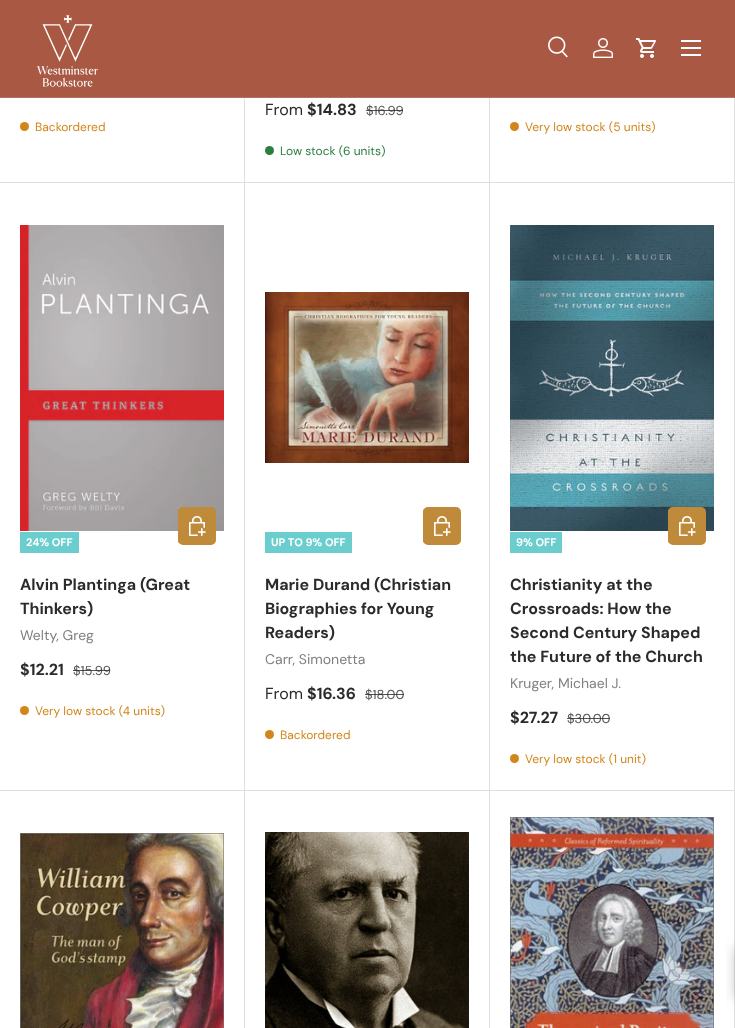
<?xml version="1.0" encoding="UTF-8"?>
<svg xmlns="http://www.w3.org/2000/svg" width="735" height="1028">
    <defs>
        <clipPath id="clip1"><rect x="178" y="507" width="38" height="38" rx="5"/></clipPath>
        <linearGradient id="g1" gradientUnits="userSpaceOnUse" x1="111" y1="513" x2="215" y2="539"><stop offset="0.6" stop-color="#CDA364"/><stop offset="0.6" stop-color="#BF8B3B"/><stop offset="1" stop-color="#BF8B3B"/></linearGradient>
        <clipPath id="clip2"><rect x="423" y="507" width="38" height="38" rx="5"/></clipPath>
        <linearGradient id="g2" gradientUnits="userSpaceOnUse" x1="356" y1="513" x2="460" y2="539"><stop offset="0.6" stop-color="#CDA364"/><stop offset="0.6" stop-color="#BF8B3B"/><stop offset="1" stop-color="#BF8B3B"/></linearGradient>
        <clipPath id="clip3"><rect x="668" y="507" width="38" height="38" rx="5"/></clipPath>
        <linearGradient id="g3" gradientUnits="userSpaceOnUse" x1="601" y1="513" x2="705" y2="539"><stop offset="0.6" stop-color="#CDA364"/><stop offset="0.6" stop-color="#BF8B3B"/><stop offset="1" stop-color="#BF8B3B"/></linearGradient>
        <filter id="blur1" x="-50%" y="-200%" width="200%" height="500%"><feGaussianBlur stdDeviation="7"/></filter>
    </defs>
    <rect width="100%" height="100%" fill="#FFFFFF"/>
    <path d="M 245 -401 V 183 L 244 182 V -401 Z" fill="#DFDFDF"/>
    <path d="M 490 -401 V 183 L 489 182 V -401 Z" fill="#DFDFDF"/>
    <path d="M 735 -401 V 183 L 734 182 V -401 Z" fill="#DFDFDF"/>
    <rect x="0" y="0" width="735" height="97" fill="#A95943"/>
    <rect x="0" y="97" width="735" height="1" fill="#B6725F"/>
    <image x="37" y="15" width="61" height="72" href="img_01.png"/>
    <image x="548" y="36" width="20" height="22" href="img_02.png"/>
    <image x="593" y="38" width="20" height="20" href="img_03.png"/>
    <image x="636" y="38" width="20" height="20" href="img_04.png"/>
    <rect x="681" y="40" width="20" height="2" fill="#FFFFFF"/>
    <rect x="681" y="54" width="20" height="2" fill="#FFFFFF"/>
    <rect x="681" y="47" width="20" height="2" fill="#FFFFFF"/>
    <path d="M 245 183 H 0 V 182 H 244 Z" fill="#2A2B2A" fill-opacity="0.15"/>
    <circle cx="24.5" cy="126.5" r="4.5" fill="#D2861A"/>
    <text x="35" y="131" font-family="DM Sans" font-size="12" fill="#D2861A">Backordered</text>
    <path d="M 490 183 H 245 V 182 H 489 Z" fill="#2A2B2A" fill-opacity="0.15"/>
    <text x="265" y="115" font-family="DM Sans" font-size="16" fill="#2A2B2A">From</text>
    <text x="307" y="115" font-family="DM Sans" font-size="16" font-weight="700" fill="#2A2B2A">$14.83</text>
    <text x="366" y="115" font-family="DM Sans" font-size="13" fill="#555555">$16.99</text>
    <rect x="366" y="110" width="37" height="1" fill="#2A2B2A" fill-opacity="0.8"/>
    <circle cx="269.5" cy="150.5" r="4.5" fill="#2C7E3F"/>
    <text x="280" y="155" font-family="DM Sans" font-size="12" fill="#2C7E3F">Low stock (6 units)</text>
    <path d="M 735 183 H 490 V 182 H 734 Z" fill="#2A2B2A" fill-opacity="0.15"/>
    <circle cx="514.5" cy="126.5" r="4.5" fill="#D2861A"/>
    <text x="525" y="131" font-family="DM Sans" font-size="12" fill="#D2861A">Very low stock (5 units)</text>
    <path d="M 245 183 V 791 L 244 790 V 183 Z" fill="#DFDFDF"/>
    <path d="M 245 791 H 0 V 790 H 244 Z" fill="#2A2B2A" fill-opacity="0.15"/>
    <image x="20" y="225" width="204" height="306" href="img_05.png"/>
    <rect x="20" y="532" width="59" height="21" fill="#6BCDCD"/>
    <text x="26" y="546" font-family="DM Sans" font-size="11" font-weight="700" fill="#FFFFFF">24% OFF</text>
    <g clip-path="url(#clip1)">
        <rect x="178" y="509" width="36" height="34" fill="url(#g1)"/>
    </g>
    <rect x="179" y="508" width="36" height="36" rx="4" fill="none" stroke="#BF8B3B" stroke-width="2"/>
    <image x="189" y="516" width="17" height="20" href="img_06.png"/>
    <text font-family="DM Sans" font-size="16" font-weight="700" fill="#2A2B2A">
        <tspan x="20" y="590">Alvin Plantinga (Great</tspan>
        <tspan x="20" y="614">Thinkers)</tspan>
    </text>
    <text x="20" y="640" font-family="DM Sans" font-size="14" fill="#7F807F">Welty, Greg</text>
    <text x="20" y="675" font-family="DM Sans" font-size="16" font-weight="700" fill="#2A2B2A">$12.21</text>
    <text x="73" y="675" font-family="DM Sans" font-size="13" fill="#555555">$15.99</text>
    <rect x="73" y="670" width="37" height="1" fill="#2A2B2A" fill-opacity="0.8"/>
    <circle cx="24.5" cy="710.5" r="4.5" fill="#D2861A"/>
    <text x="35" y="715" font-family="DM Sans" font-size="12" fill="#D2861A">Very low stock (4 units)</text>
    <path d="M 490 183 V 791 L 489 790 V 183 Z" fill="#DFDFDF"/>
    <path d="M 490 791 H 245 V 790 H 489 Z" fill="#2A2B2A" fill-opacity="0.15"/>
    <image x="265" y="292" width="204" height="171" href="img_07.png"/>
    <rect x="265" y="532" width="87" height="21" fill="#6BCDCD"/>
    <text x="271" y="546" font-family="DM Sans" font-size="11" font-weight="700" fill="#FFFFFF">UP TO 9% OFF</text>
    <g clip-path="url(#clip2)">
        <rect x="423" y="509" width="36" height="34" fill="url(#g2)"/>
    </g>
    <rect x="424" y="508" width="36" height="36" rx="4" fill="none" stroke="#BF8B3B" stroke-width="2"/>
    <image x="434" y="516" width="17" height="20" href="img_06.png"/>
    <text font-family="DM Sans" font-size="16" font-weight="700" fill="#2A2B2A">
        <tspan x="265" y="590">Marie Durand (Christian</tspan>
        <tspan x="265" y="614">Biographies for Young</tspan>
        <tspan x="265" y="638">Readers)</tspan>
    </text>
    <text x="265" y="664" font-family="DM Sans" font-size="14" fill="#7F807F">Carr, Simonetta</text>
    <text x="265" y="699" font-family="DM Sans" font-size="16" fill="#2A2B2A">From</text>
    <text x="307" y="699" font-family="DM Sans" font-size="16" font-weight="700" fill="#2A2B2A">$16.36</text>
    <text x="365" y="699" font-family="DM Sans" font-size="13" fill="#555555">$18.00</text>
    <rect x="365" y="694" width="39" height="1" fill="#2A2B2A" fill-opacity="0.8"/>
    <circle cx="269.5" cy="734.5" r="4.5" fill="#D2861A"/>
    <text x="280" y="739" font-family="DM Sans" font-size="12" fill="#D2861A">Backordered</text>
    <path d="M 735 183 V 791 L 734 790 V 183 Z" fill="#DFDFDF"/>
    <path d="M 735 791 H 490 V 790 H 734 Z" fill="#2A2B2A" fill-opacity="0.15"/>
    <image x="510" y="225" width="204" height="306" href="img_08.png"/>
    <rect x="510" y="532" width="52" height="21" fill="#6BCDCD"/>
    <text x="516" y="546" font-family="DM Sans" font-size="11" font-weight="700" fill="#FFFFFF">9% OFF</text>
    <g clip-path="url(#clip3)">
        <rect x="668" y="509" width="36" height="34" fill="url(#g3)"/>
    </g>
    <rect x="669" y="508" width="36" height="36" rx="4" fill="none" stroke="#BF8B3B" stroke-width="2"/>
    <image x="679" y="516" width="17" height="20" href="img_06.png"/>
    <text font-family="DM Sans" font-size="16" font-weight="700" fill="#2A2B2A">
        <tspan x="510" y="590">Christianity at the</tspan>
        <tspan x="510" y="614">Crossroads: How the</tspan>
        <tspan x="510" y="638">Second Century Shaped</tspan>
        <tspan x="510" y="662">the Future of the Church</tspan>
    </text>
    <text x="510" y="688" font-family="DM Sans" font-size="14" fill="#7F807F">Kruger, Michael J.</text>
    <text x="510" y="723" font-family="DM Sans" font-size="16" font-weight="700" fill="#2A2B2A">$27.27</text>
    <text x="567" y="723" font-family="DM Sans" font-size="13" fill="#555555">$30.00</text>
    <rect x="567" y="718" width="43" height="1" fill="#2A2B2A" fill-opacity="0.8"/>
    <circle cx="514.5" cy="758.5" r="4.5" fill="#D2861A"/>
    <text x="525" y="763" font-family="DM Sans" font-size="12" fill="#D2861A">Very low stock (1 unit)</text>
    <path d="M 245 791 V 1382 L 244 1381 V 791 Z" fill="#DFDFDF"/>
    <image x="20" y="833" width="204" height="195" href="img_09.png"/>
    <path d="M 490 791 V 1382 L 489 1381 V 791 Z" fill="#DFDFDF"/>
    <image x="265" y="832" width="204" height="196" href="img_10.png"/>
    <path d="M 735 791 V 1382 L 734 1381 V 791 Z" fill="#DFDFDF"/>
    <image x="510" y="817" width="204" height="211" href="img_11.png"/>
    <rect x="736" y="948" width="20" height="50" fill="#757575" fill-opacity="0.5" filter="url(#blur1)"/>
</svg>
